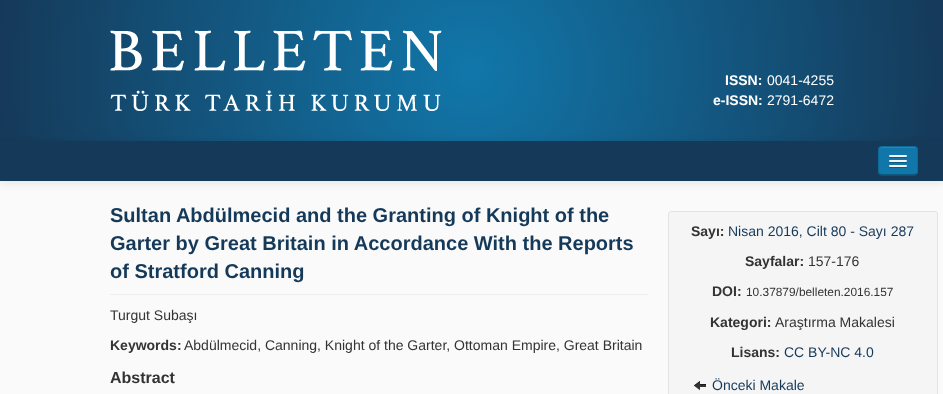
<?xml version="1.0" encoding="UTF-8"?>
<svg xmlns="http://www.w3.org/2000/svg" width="943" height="394">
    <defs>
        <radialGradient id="g1" gradientUnits="userSpaceOnUse" cx="472" cy="71" r="477"><stop offset="0" stop-color="#1177AA"/><stop offset="1" stop-color="#153959"/></radialGradient>
        <filter id="blur1" x="-50%" y="-200%" width="200%" height="500%"><feGaussianBlur stdDeviation="5"/></filter>
    </defs>
    <rect width="100%" height="100%" fill="#FAFAFA"/>
    <rect x="0" y="0" width="943" height="141" fill="url(#g1)"/>
    <image x="110" y="30" width="332" height="81" href="img_01.png"/>
    <text x="725" y="85" font-family="Liberation Sans" font-size="14" font-weight="700" fill="#FFFFFF">ISSN:</text>
    <text x="767" y="85" font-family="Liberation Sans" font-size="14" fill="#FFFFFF">0041-4255</text>
    <text x="713" y="105" font-family="Liberation Sans" font-size="14" font-weight="700" fill="#FFFFFF">e-ISSN:</text>
    <text x="767" y="105" font-family="Liberation Sans" font-size="14" fill="#FFFFFF">2791-6472</text>
    <rect x="0" y="142" width="943" height="40" fill="#000000" fill-opacity="0.1" filter="url(#blur1)"/>
    <rect x="0" y="141" width="943" height="40" fill="#153959"/>
    <path d="M 878 171 C 878 177 883 176 887 176 H 909 C 913 176 918 177 918 171 C 918 173 916 175 914 175 H 882 C 880 175 878 173 878 171 Z" fill="#274865"/>
    <rect x="878" y="146" width="40" height="29" rx="4" fill="#1177AA"/>
    <path d="M 882 148 H 914 C 916 148 917 149 917 151 C 917 146 913 147 908.5 147 H 887.5 C 883 147 879 146 879 151 C 879 149 880 148 882 148 Z" fill="#2985B3"/>
    <path d="M 916.5 173.5 C 916 174 915 174.5 914 174.5 H 882 C 881 174.5 880 174 879.5 173.5" fill="none" stroke="#000000" stroke-opacity="0.25"/>
    <path d="M 879.5 173.5 C 879 173 878.5 172 878.5 171 V 150 C 878.5 149 879 148 879.5 147.5 C 880 147 881 146.5 882 146.5 H 914 C 915 146.5 916 147 916.5 147.5 C 917 148 917.5 149 917.5 150 V 171 C 917.5 172 917 173 916.5 173.5" fill="none" stroke="#000000" stroke-opacity="0.1"/>
    <path d="M 889 156.5 C 888 158.5 892.5 158 892.5 158 H 903.5 C 903.5 158 908 158.5 907 156.5 C 906 157.5 899.5 157 898 157 C 896.5 157 890 157.5 889 156.5 Z" fill="#0D5980"/>
    <rect x="889" y="155" width="18" height="2" rx="1" fill="#F5F5F5"/>
    <path d="M 889 161.5 C 888 163.5 892.5 163 892.5 163 H 903.5 C 903.5 163 908 163.5 907 161.5 C 906 162.5 899.5 162 898 162 C 896.5 162 890 162.5 889 161.5 Z" fill="#0D5980"/>
    <rect x="889" y="160" width="18" height="2" rx="1" fill="#F5F5F5"/>
    <path d="M 889 166.5 C 888 168.5 892.5 168 892.5 168 H 903.5 C 903.5 168 908 168.5 907 166.5 C 906 167.5 899.5 167 898 167 C 896.5 167 890 167.5 889 166.5 Z" fill="#0D5980"/>
    <rect x="889" y="165" width="18" height="2" rx="1" fill="#F5F5F5"/>
    <rect x="110" y="294" width="538" height="1" fill="#EEEEEE"/>
    <text font-family="Liberation Sans" font-size="20" font-weight="700" fill="#153959">
        <tspan x="110" y="222">Sultan Abdülmecid and the Granting of Knight of the</tspan>
        <tspan x="110" y="250">Garter by Great Britain in Accordance With the Reports</tspan>
        <tspan x="110" y="278">of Stratford Canning</tspan>
    </text>
    <text x="110" y="320" font-family="Liberation Sans" font-size="14" fill="#333333">Turgut Subaşı</text>
    <text x="110" y="350" font-family="Liberation Sans" font-size="14" font-weight="700" fill="#333333">Keywords:</text>
    <text x="184" y="350" font-family="Liberation Sans" font-size="14" fill="#333333">Abdülmecid, Canning, Knight of the Garter, Ottoman Empire, Great Britain</text>
    <text x="110" y="383" font-family="Liberation Sans" font-size="16" font-weight="700" fill="#333333">Abstract</text>
    <rect x="668.5" y="211.5" width="269" height="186" rx="2.5" fill="#F5F5F5" stroke="#E3E3E3"/>
    <text x="691" y="236" font-family="Liberation Sans" font-size="14" font-weight="700" fill="#333333">Sayı:</text>
    <text x="728" y="236" font-family="Liberation Sans" font-size="14" fill="#153959">Nisan 2016, Cilt 80 - Sayı 287</text>
    <text x="745" y="266" font-family="Liberation Sans" font-size="14" font-weight="700" fill="#333333">Sayfalar:</text>
    <text x="808" y="266" font-family="Liberation Sans" font-size="14" fill="#333333">157-176</text>
    <text x="712" y="296" font-family="Liberation Sans" font-size="14" font-weight="700" fill="#333333">DOI:</text>
    <text x="746" y="296" font-family="Liberation Sans" font-size="11.9" fill="#333333">10.37879/belleten.2016.157</text>
    <text x="710" y="327" font-family="Liberation Sans" font-size="14" font-weight="700" fill="#333333">Kategori:</text>
    <text x="775" y="327" font-family="Liberation Sans" font-size="14" fill="#333333">Araştırma Makalesi</text>
    <text x="731" y="357" font-family="Liberation Sans" font-size="14" font-weight="700" fill="#333333">Lisans:</text>
    <text x="784" y="357" font-family="Liberation Sans" font-size="14" fill="#153959">CC BY-NC 4.0</text>
    <image x="694" y="381" width="12" height="10" href="img_02.png"/>
    <text x="712" y="390" font-family="Liberation Sans" font-size="14" fill="#153959">Önceki Makale</text>
</svg>
